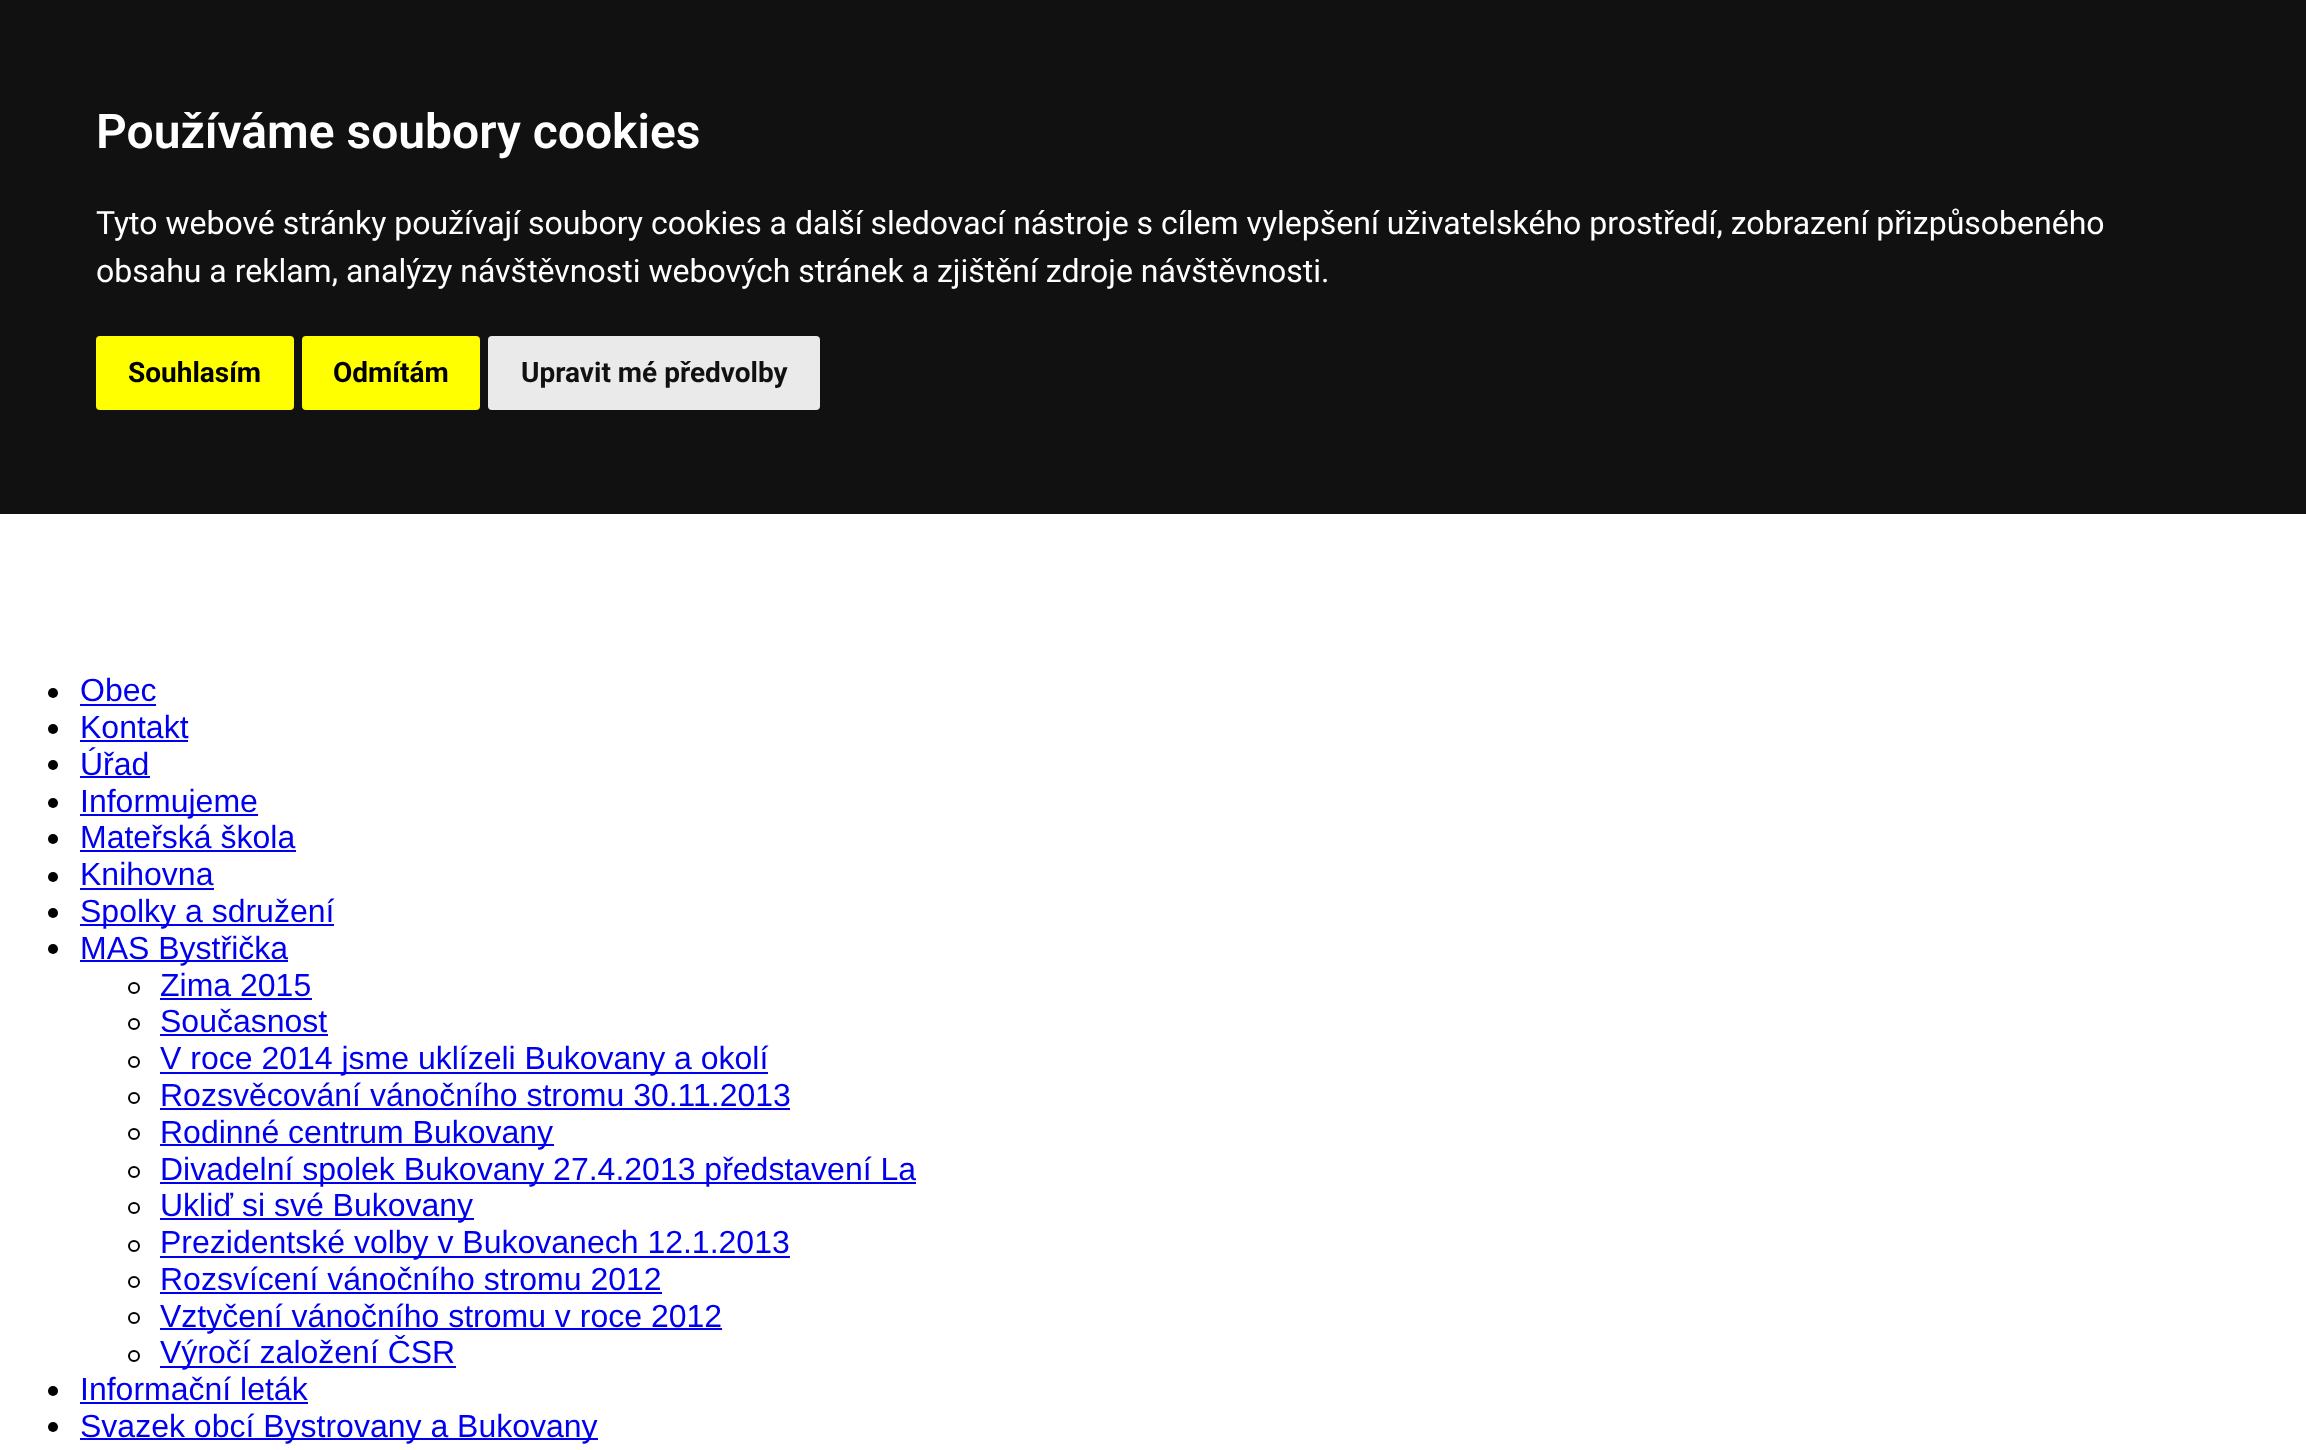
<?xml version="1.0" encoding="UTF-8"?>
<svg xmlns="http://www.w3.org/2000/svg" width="2306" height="1450">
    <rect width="100%" height="100%" fill="#FFFFFF"/>
    <rect x="0" y="0" width="2306" height="514" fill="#111111"/>
    <text x="96" y="148" font-family="Roboto" font-size="48" font-weight="600" fill="#FFFFFF">Používáme soubory cookies</text>
    <text font-family="Roboto" font-size="32" fill="#FFFFFF">
        <tspan x="96" y="234">Tyto webové stránky používají soubory cookies a další sledovací nástroje s cílem vylepšení uživatelského prostředí, zobrazení přizpůsobeného</tspan>
        <tspan x="96" y="282">obsahu a reklam, analýzy návštěvnosti webových stránek a zjištění zdroje návštěvnosti.</tspan>
    </text>
    <rect x="96" y="336" width="198" height="74" rx="4" fill="#FFFF00"/>
    <text x="128" y="382" font-family="Roboto" font-size="28" font-weight="700" fill="#000000">Souhlasím</text>
    <rect x="302" y="336" width="178" height="74" rx="4" fill="#FFFF00"/>
    <text x="333" y="382" font-family="Roboto" font-size="28" font-weight="700" fill="#000000">Odmítám</text>
    <rect x="488" y="336" width="332" height="74" rx="4" fill="#EAEAEA"/>
    <text x="521" y="382" font-family="Roboto" font-size="28" font-weight="700" fill="#111111">Upravit mé předvolby</text>
    <circle cx="53" cy="693" r="5" fill="#000000"/>
    <text x="80" y="701" font-family="Liberation Sans" font-size="32" fill="#0000EE">Obec</text>
    <rect x="80" y="704" width="76" height="2" fill="#0000EE"/>
    <circle cx="53" cy="729" r="5" fill="#000000"/>
    <text x="80" y="738" font-family="Liberation Sans" font-size="32" fill="#0000EE">Kontakt</text>
    <rect x="80" y="740" width="108" height="2" fill="#0000EE"/>
    <circle cx="53" cy="765" r="5" fill="#000000"/>
    <text x="80" y="775" font-family="Liberation Sans" font-size="32" fill="#0000EE">Úřad</text>
    <rect x="80" y="776" width="70" height="2" fill="#0000EE"/>
    <circle cx="53" cy="803" r="5" fill="#000000"/>
    <rect x="80" y="814" width="178" height="2" fill="#0000EE"/>
    <text x="80" y="812" font-family="Liberation Sans" font-size="32" fill="#0000EE">Informujeme</text>
    <circle cx="53" cy="839" r="5" fill="#000000"/>
    <text x="80" y="848" font-family="Liberation Sans" font-size="32" fill="#0000EE">Mateřská škola</text>
    <rect x="80" y="850" width="216" height="2" fill="#0000EE"/>
    <circle cx="53" cy="877" r="5" fill="#000000"/>
    <text x="80" y="885" font-family="Liberation Sans" font-size="32" fill="#0000EE">Knihovna</text>
    <rect x="80" y="888" width="134" height="2" fill="#0000EE"/>
    <circle cx="53" cy="913" r="5" fill="#000000"/>
    <rect x="80" y="924" width="254" height="2" fill="#0000EE"/>
    <text x="80" y="922" font-family="Liberation Sans" font-size="32" fill="#0000EE">Spolky a sdružení</text>
    <circle cx="53" cy="949" r="5" fill="#000000"/>
    <rect x="80" y="960" width="208" height="2" fill="#0000EE"/>
    <text x="80" y="959" font-family="Liberation Sans" font-size="32" fill="#0000EE">MAS Bystřička</text>
    <circle cx="134" cy="988" r="5" fill="none" stroke="#000000" stroke-width="2"/>
    <text x="160" y="996" font-family="Liberation Sans" font-size="32" fill="#0000EE">Zima 2015</text>
    <rect x="160" y="998" width="152" height="2" fill="#0000EE"/>
    <circle cx="134" cy="1024" r="5" fill="none" stroke="#000000" stroke-width="2"/>
    <text x="160" y="1032" font-family="Liberation Sans" font-size="32" fill="#0000EE">Současnost</text>
    <rect x="160" y="1034" width="168" height="2" fill="#0000EE"/>
    <circle cx="134" cy="1062" r="5" fill="none" stroke="#000000" stroke-width="2"/>
    <rect x="160" y="1072" width="608" height="2" fill="#0000EE"/>
    <text x="160" y="1069" font-family="Liberation Sans" font-size="32" fill="#0000EE">V roce 2014 jsme uklízeli Bukovany a okolí</text>
    <circle cx="134" cy="1098" r="5" fill="none" stroke="#000000" stroke-width="2"/>
    <text x="160" y="1106" font-family="Liberation Sans" font-size="32" fill="#0000EE">Rozsvěcování vánočního stromu 30.11.2013</text>
    <rect x="160" y="1108" width="630" height="2" fill="#0000EE"/>
    <circle cx="134" cy="1134" r="5" fill="none" stroke="#000000" stroke-width="2"/>
    <rect x="160" y="1144" width="394" height="2" fill="#0000EE"/>
    <text x="160" y="1143" font-family="Liberation Sans" font-size="32" fill="#0000EE">Rodinné centrum Bukovany</text>
    <circle cx="134" cy="1172" r="5" fill="none" stroke="#000000" stroke-width="2"/>
    <rect x="160" y="1182" width="756" height="2" fill="#0000EE"/>
    <text x="160" y="1180" font-family="Liberation Sans" font-size="32" fill="#0000EE">Divadelní spolek Bukovany 27.4.2013 představení La</text>
    <circle cx="134" cy="1208" r="5" fill="none" stroke="#000000" stroke-width="2"/>
    <rect x="160" y="1218" width="314" height="2" fill="#0000EE"/>
    <text x="160" y="1216" font-family="Liberation Sans" font-size="32" fill="#0000EE">Ukliď si své Bukovany</text>
    <circle cx="134" cy="1246" r="5" fill="none" stroke="#000000" stroke-width="2"/>
    <rect x="160" y="1256" width="630" height="2" fill="#0000EE"/>
    <text x="160" y="1253" font-family="Liberation Sans" font-size="32" fill="#0000EE">Prezidentské volby v Bukovanech 12.1.2013</text>
    <circle cx="134" cy="1282" r="5" fill="none" stroke="#000000" stroke-width="2"/>
    <text x="160" y="1290" font-family="Liberation Sans" font-size="32" fill="#0000EE">Rozsvícení vánočního stromu 2012</text>
    <rect x="160" y="1292" width="502" height="2" fill="#0000EE"/>
    <circle cx="134" cy="1318" r="5" fill="none" stroke="#000000" stroke-width="2"/>
    <rect x="160" y="1328" width="562" height="2" fill="#0000EE"/>
    <text x="160" y="1327" font-family="Liberation Sans" font-size="32" fill="#0000EE">Vztyčení vánočního stromu v roce 2012</text>
    <circle cx="134" cy="1356" r="5" fill="none" stroke="#000000" stroke-width="2"/>
    <rect x="160" y="1366" width="296" height="2" fill="#0000EE"/>
    <text x="160" y="1363" font-family="Liberation Sans" font-size="32" fill="#0000EE">Výročí založení ČSR</text>
    <circle cx="53" cy="1391" r="5" fill="#000000"/>
    <text x="80" y="1400" font-family="Liberation Sans" font-size="32" fill="#0000EE">Informační leták</text>
    <rect x="80" y="1402" width="228" height="2" fill="#0000EE"/>
    <circle cx="53" cy="1427" r="5" fill="#000000"/>
    <rect x="80" y="1438" width="518" height="2" fill="#0000EE"/>
    <text x="80" y="1437" font-family="Liberation Sans" font-size="32" fill="#0000EE">Svazek obcí Bystrovany a Bukovany</text>
</svg>
